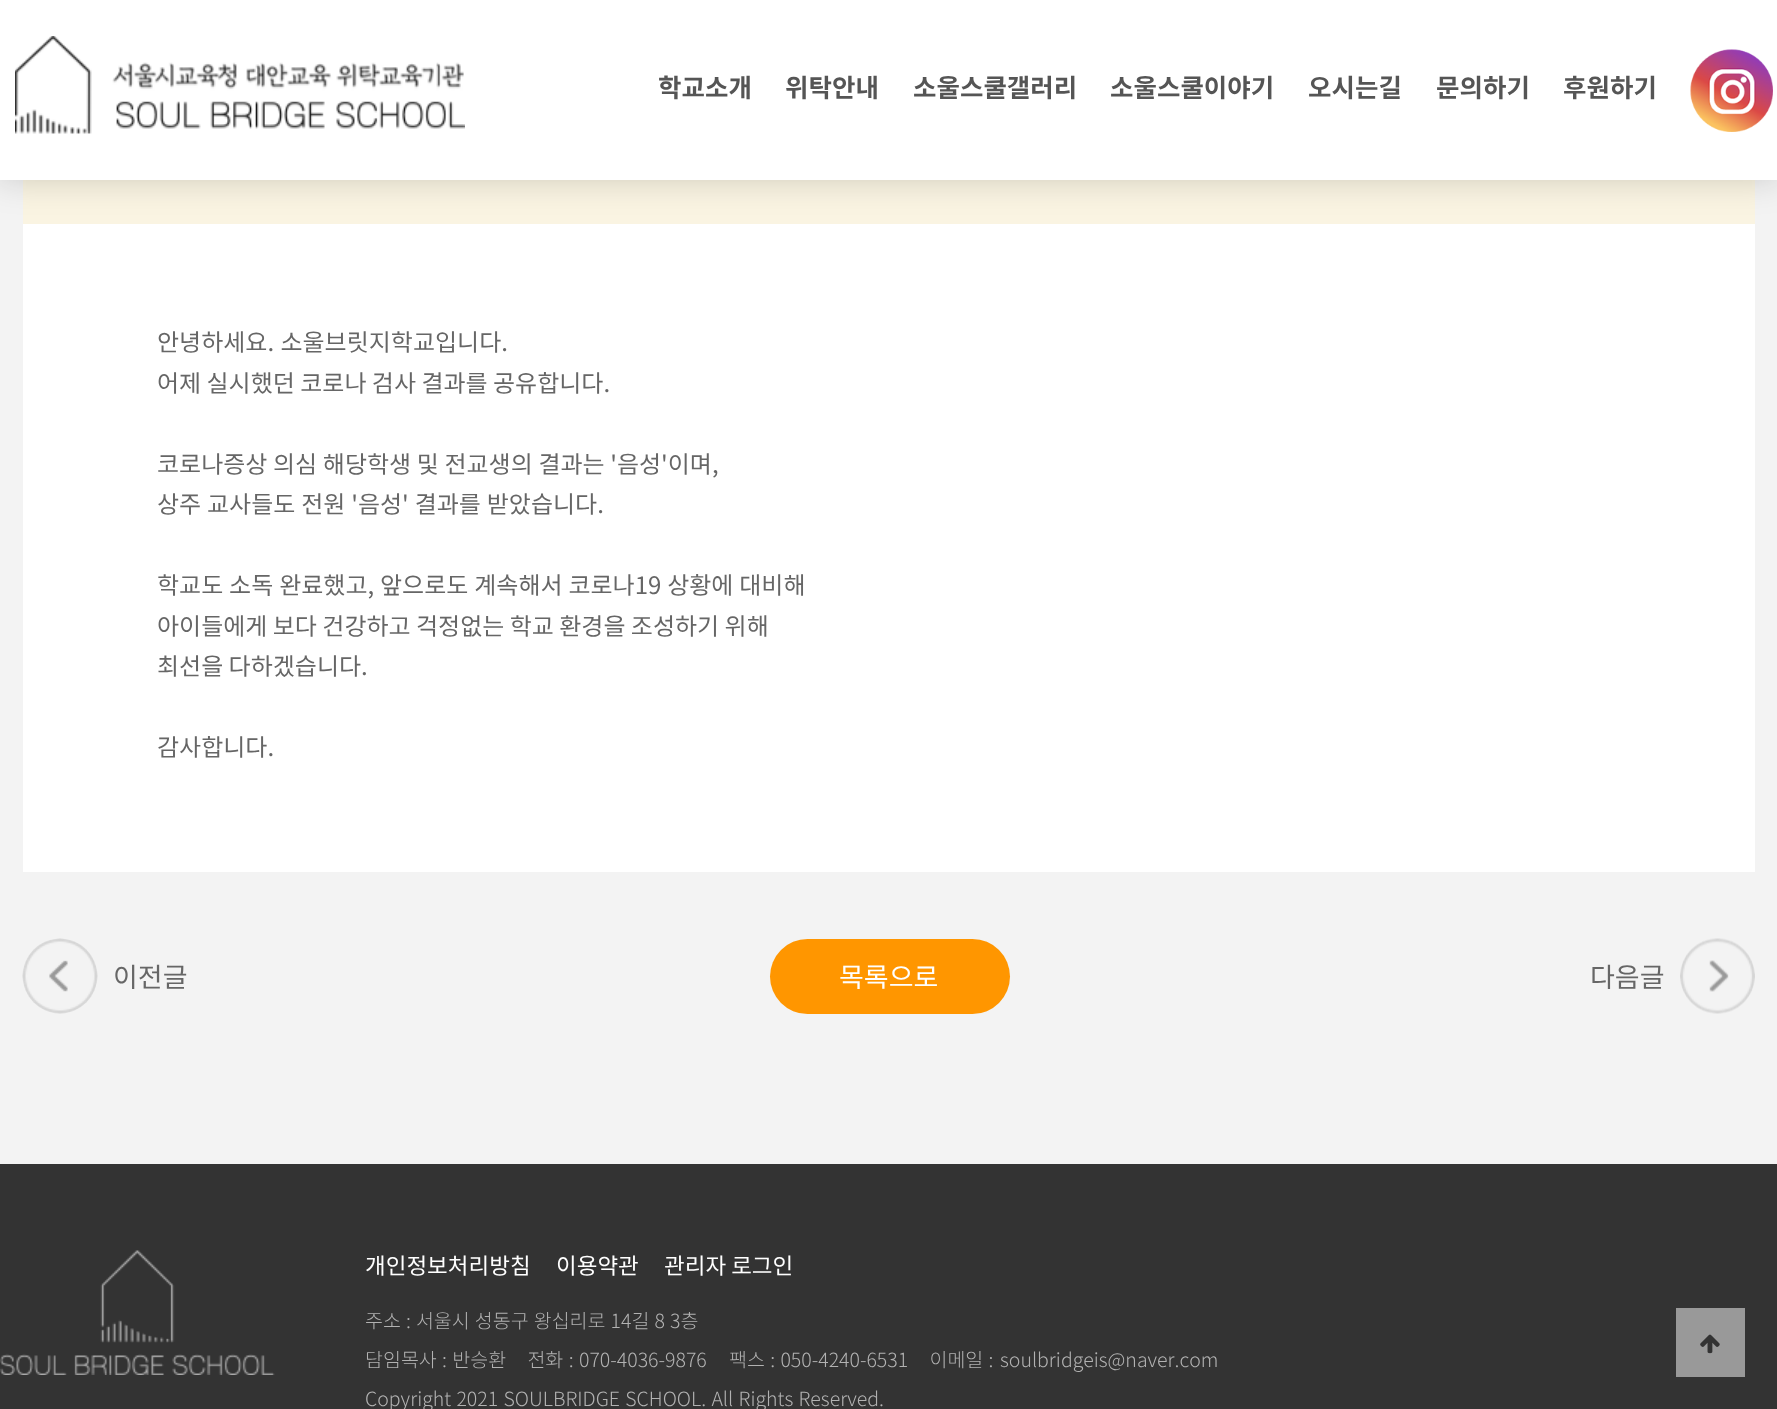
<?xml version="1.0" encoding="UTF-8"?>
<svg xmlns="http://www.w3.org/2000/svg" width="1777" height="1409">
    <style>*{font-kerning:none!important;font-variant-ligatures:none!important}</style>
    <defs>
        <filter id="blur1" x="-50%" y="-200%" width="200%" height="500%"><feGaussianBlur stdDeviation="18"/></filter>
    </defs>
    <rect width="100%" height="100%" fill="#F3F3F3"/>
    <rect x="23" y="224" width="1732" height="648" fill="#FFFFFF"/>
    <rect x="23" y="180" width="1732" height="44" fill="#FAF4E2"/>
    <rect x="-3" y="-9" width="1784" height="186" fill="#000000" fill-opacity="0.2" filter="url(#blur1)"/>
    <rect x="0" y="0" width="1777" height="180" fill="#FFFFFF"/>
    <image x="15" y="36" width="450" height="98" href="img_01.png"/>
    <text x="658" y="97" font-family="Noto Sans KR" font-size="25.5" font-weight="700" fill="#555555">학교소개</text>
    <text x="785" y="97" font-family="Noto Sans KR" font-size="25.5" font-weight="700" fill="#555555">위탁안내</text>
    <text x="913" y="97" font-family="Noto Sans KR" font-size="25.5" font-weight="700" fill="#555555">소울스쿨갤러리</text>
    <text x="1110" y="97" font-family="Noto Sans KR" font-size="25.5" font-weight="700" fill="#555555">소울스쿨이야기</text>
    <text x="1308" y="97" font-family="Noto Sans KR" font-size="25.5" font-weight="700" fill="#555555">오시는길</text>
    <text x="1436" y="97" font-family="Noto Sans KR" font-size="25.5" font-weight="700" fill="#555555">문의하기</text>
    <text x="1563" y="97" font-family="Noto Sans KR" font-size="25.5" font-weight="700" fill="#555555">후원하기</text>
    <image x="1690" y="49" width="83" height="83" href="img_02.png"/>
    <text font-family="Noto Sans KR" font-size="24" fill="#666666">
        <tspan x="157" y="351" word-spacing="1">안녕하세요. 소울브릿지학교입니다.</tspan>
        <tspan x="157" y="392">어제 실시했던 코로나 검사 결과를 공유합니다.</tspan>
    </text>
    <text font-family="Noto Sans KR" font-size="24" fill="#666666">
        <tspan x="157" y="473" word-spacing="0.25">코로나증상 의심 해당학생 및 전교생의 결과는 '음성'이며,</tspan>
        <tspan x="157" y="513" word-spacing="0.5">상주 교사들도 전원 '음성' 결과를 받았습니다.</tspan>
    </text>
    <text font-family="Noto Sans KR" font-size="24" fill="#666666">
        <tspan x="157" y="594" word-spacing="0.5">학교도 소독 완료했고, 앞으로도 계속해서 코로나19 상황에 대비해</tspan>
        <tspan x="157" y="635">아이들에게 보다 건강하고 걱정없는 학교 환경을 조성하기 위해</tspan>
        <tspan x="157" y="675">최선을 다하겠습니다.</tspan>
    </text>
    <text x="157" y="756" font-family="Noto Sans KR" font-size="24" fill="#666666">감사합니다.</text>
    <image x="22" y="938" width="76" height="76" href="img_03.png"/>
    <text x="113" y="987" font-family="Noto Sans KR" font-size="27" fill="#666666">이전글</text>
    <rect x="770" y="939" width="240" height="75" rx="37.5" fill="#FF9600"/>
    <text x="839" y="987" font-family="Noto Sans KR" font-size="27" fill="#FFFFFF">목록으로</text>
    <text x="1590" y="987" font-family="Noto Sans KR" font-size="27" fill="#666666">다음글</text>
    <image x="1680" y="938" width="75" height="76" href="img_04.png"/>
    <rect x="0" y="1164" width="1777" height="245" fill="#333333"/>
    <image x="0" y="1250" width="275" height="125" href="img_05.png"/>
    <text x="365" y="1274" font-family="Noto Sans KR" font-size="22.5" fill="#FFFFFF">개인정보처리방침</text>
    <text x="556" y="1274" font-family="Noto Sans KR" font-size="22.5" fill="#FFFFFF">이용약관</text>
    <text x="664" y="1274" font-family="Noto Sans KR" font-size="22.5" fill="#FFFFFF">관리자 로그인</text>
    <text x="365" y="1328" word-spacing="0.75" font-family="Noto Sans KR" font-size="19.5" font-weight="300" fill="#B2B2B2">주소 : 서울시 성동구 왕십리로 14길 8 3층</text>
    <text x="365" y="1367" word-spacing="1" font-family="Noto Sans KR" font-size="19.5" font-weight="300" fill="#B2B2B2" xml:space="preserve">담임목사 : 반승환    전화 :</text>
    <text x="579" y="1367" font-family="Noto Sans KR" font-size="19.5" font-weight="300" fill="#B2B2B2">070-4036-9876</text>
    <text x="729" y="1367" word-spacing="1" font-family="Noto Sans KR" font-size="19.5" font-weight="300" fill="#B2B2B2" xml:space="preserve">팩스 : 050-4240-6531    이메일 :</text>
    <text x="1000" y="1367" font-family="Noto Sans KR" font-size="19.5" font-weight="300" fill="#B2B2B2">soulbridgeis@naver.com</text>
    <text x="365" y="1406" word-spacing="1" font-family="Noto Sans KR" font-size="19.5" font-weight="300" fill="#B2B2B2">Copyright 2021 SOULBRIDGE SCHOOL. All Rights Reserved.</text>
    <rect x="1676" y="1308" width="69" height="69" fill="#999999"/>
    <image x="1700" y="1334" width="20" height="20" href="img_06.png"/>
</svg>
